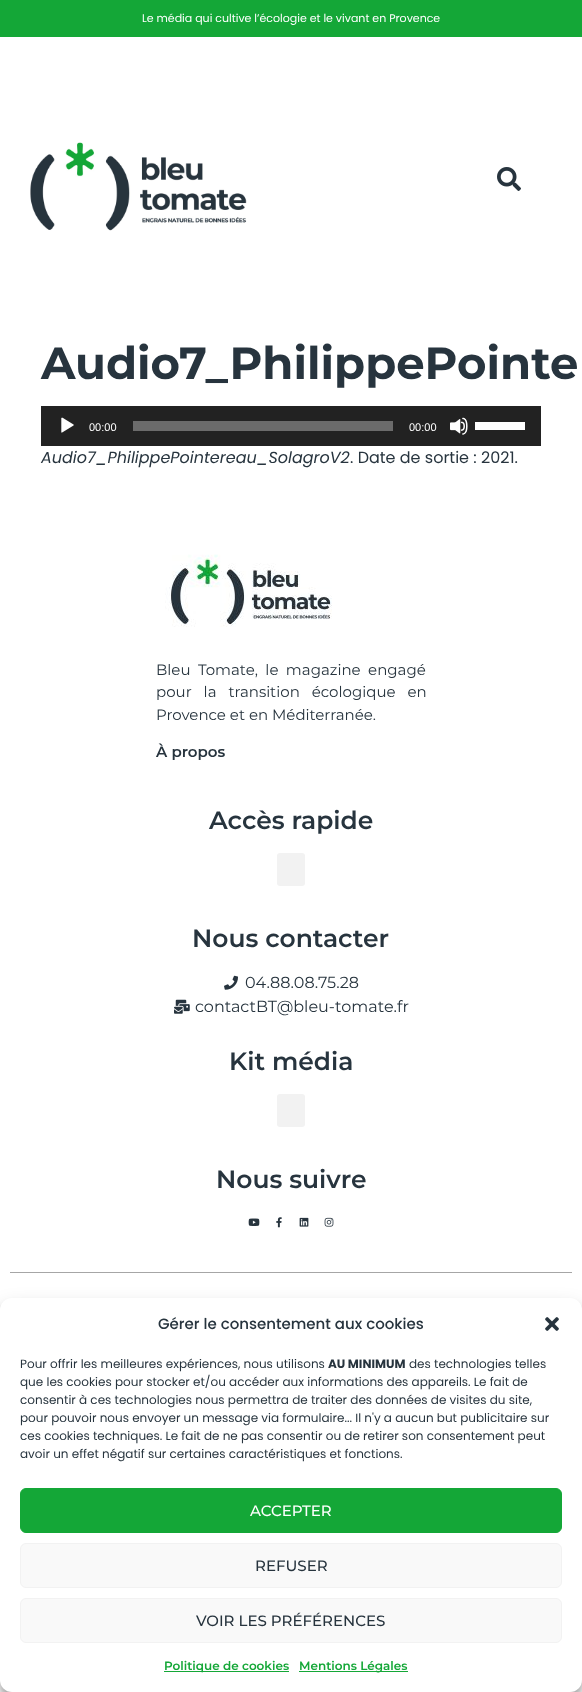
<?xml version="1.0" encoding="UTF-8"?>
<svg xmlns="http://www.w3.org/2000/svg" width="582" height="1692">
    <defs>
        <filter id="blur1" x="-50%" y="-200%" width="200%" height="500%"><feGaussianBlur stdDeviation="3"/></filter>
        <filter id="blur2" x="-50%" y="-200%" width="200%" height="500%"><feGaussianBlur stdDeviation="10"/></filter>
        <filter id="blur3" x="-50%" y="-200%" width="200%" height="500%"><feGaussianBlur stdDeviation="2.5"/></filter>
    </defs>
    <rect width="100%" height="100%" fill="#FFFFFF"/>
    <rect x="0" y="0" width="582" height="37" fill="#14A737"/>
    <text x="142" y="22" font-family="Poppins" font-size="11" fill="#FFFFFF">Le média qui cultive l’écologie et le vivant en Provence</text>
    <image x="30" y="142" width="217" height="89" href="img_01.png"/>
    <image x="497" y="167" width="24" height="24" href="img_02.png"/>
    <text x="41" y="379" font-family="Montserrat" font-size="45" font-weight="700" fill="#27343E">Audio7_PhilippePointe</text>
    <rect x="41" y="406" width="500" height="40" fill="#222222"/>
    <image x="61" y="417" width="13" height="16" href="img_03.png"/>
    <text x="89" y="431" font-family="Liberation Sans" font-size="11" fill="#FFFFFF">00:00</text>
    <rect x="133" y="421" width="260" height="10" fill="#6B6B6B"/>
    <text x="409" y="431" font-family="Liberation Sans" font-size="11" fill="#FFFFFF">00:00</text>
    <image x="450" y="417" width="18" height="18" href="img_04.png"/>
    <rect x="475" y="422" width="50" height="8" fill="#FFFFFF"/>
    <text x="41" y="463" font-family="Poppins" font-size="16" font-style="italic" fill="#27343E">Audio7_PhilippePointereau_SolagroV2</text>
    <text x="350" y="463" font-family="Poppins" font-size="16" fill="#27343E">. Date de sortie : 2021.</text>
    <image x="165" y="554" width="167" height="73" href="img_05.png"/>
    <text font-family="Montserrat" font-size="15" fill="#27343E">
        <tspan x="156" y="675" word-spacing="3.5">Bleu Tomate, le magazine engagé</tspan>
        <tspan x="156" y="697" word-spacing="8">pour la transition écologique en</tspan>
        <tspan x="156" y="720">Provence et en Méditerranée.</tspan>
    </text>
    <text x="156" y="757" font-family="Montserrat" font-size="15" font-weight="600" fill="#27343E">À propos</text>
    <text x="209" y="829" font-family="Montserrat" font-size="25" font-weight="600" fill="#27343E">Accès rapide</text>
    <rect x="277" y="853" width="28" height="33" rx="3" fill="#F2F2F2"/>
    <text x="192" y="947" font-family="Montserrat" font-size="25" font-weight="600" fill="#27343E">Nous contacter</text>
    <image x="224" y="975" width="14" height="15" href="img_06.png"/>
    <text x="245" y="988" font-family="Montserrat" font-size="16" fill="#27343E">04.88.08.75.28</text>
    <image x="174" y="999" width="16" height="15" href="img_07.png"/>
    <text x="195" y="1012" font-family="Montserrat" font-size="16" fill="#27343E">contactBT@bleu-tomate.fr</text>
    <text x="229" y="1070" font-family="Montserrat" font-size="25" font-weight="600" fill="#27343E">Kit média</text>
    <rect x="277" y="1094" width="28" height="33" rx="3" fill="#F2F2F2"/>
    <text x="216" y="1188" font-family="Montserrat" font-size="25" font-weight="600" fill="#27343E">Nous suivre</text>
    <image x="248" y="1218" width="12" height="8" href="img_08.png"/>
    <image x="276" y="1217" width="6" height="11" href="img_09.png"/>
    <image x="299" y="1217" width="10" height="10" href="img_10.png"/>
    <image x="324" y="1217" width="10" height="10" href="img_11.png"/>
    <rect x="10" y="1272" width="562" height="1" fill="#A6A6A6"/>
    <rect x="0" y="1304" width="582" height="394" rx="12" fill="#000000" fill-opacity="0.23" filter="url(#blur1)"/>
    <rect x="0" y="1308" width="582" height="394" rx="12" fill="#000000" fill-opacity="0.19" filter="url(#blur2)"/>
    <rect x="512" y="1618" width="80" height="60" rx="2" fill="#808080" filter="url(#blur3)"/>
    <rect x="0" y="1298" width="582" height="394" rx="12" fill="#FFFFFF"/>
    <text x="158" y="1329" font-family="Poppins" font-size="15" font-weight="500" fill="#27343E">Gérer le consentement aux cookies</text>
    <image x="545" y="1317" width="14" height="14" href="img_12.png"/>
    <text x="20" y="1368" font-family="Poppins" font-size="12" fill="#27343E">Pour offrir les meilleures expériences, nous utilisons</text>
    <text x="328" y="1368" font-family="Poppins" font-size="12" font-weight="700" fill="#27343E">AU MINIMUM</text>
    <text x="409" y="1368" font-family="Poppins" font-size="12" fill="#27343E">des technologies telles</text>
    <text font-family="Poppins" font-size="12" fill="#27343E">
        <tspan x="20" y="1386">que les cookies pour stocker et/ou accéder aux informations des appareils. Le fait de</tspan>
        <tspan x="20" y="1404">consentir à ces technologies nous permettra de traiter des données de visites du site,</tspan>
        <tspan x="20" y="1422">pour pouvoir nous envoyer un message via formulaire... Il n'y a aucun but publicitaire sur</tspan>
        <tspan x="20" y="1440">ces cookies techniques. Le fait de ne pas consentir ou de retirer son consentement peut</tspan>
        <tspan x="20" y="1458">avoir un effet négatif sur certaines caractéristiques et fonctions.</tspan>
    </text>
    <rect x="20.5" y="1488.5" width="541" height="44" rx="5.5" fill="#14A737" stroke="#14A737"/>
    <text x="250" y="1516" font-family="Montserrat" font-size="15" font-weight="500" fill="#FFFFFF">ACCEPTER</text>
    <rect x="20.5" y="1543.5" width="541" height="44" rx="5.5" fill="#F9F9F9" stroke="#F2F2F2"/>
    <text x="255" y="1571" font-family="Montserrat" font-size="15" font-weight="500" fill="#27343E">REFUSER</text>
    <rect x="20.5" y="1598.5" width="541" height="44" rx="5.5" fill="#F9F9F9" stroke="#F2F2F2"/>
    <text x="196" y="1626" font-family="Montserrat" font-size="15" font-weight="500" fill="#27343E">VOIR LES PRÉFÉRENCES</text>
    <rect x="164" y="1671" width="125" height="1" fill="#14A737"/>
    <text x="164" y="1670" font-family="Montserrat" font-size="12" font-weight="600" fill="#14A737">Politique de cookies</text>
    <rect x="299" y="1671" width="109" height="1" fill="#14A737"/>
    <text x="299" y="1670" font-family="Montserrat" font-size="12" font-weight="600" fill="#14A737">Mentions Légales</text>
</svg>
